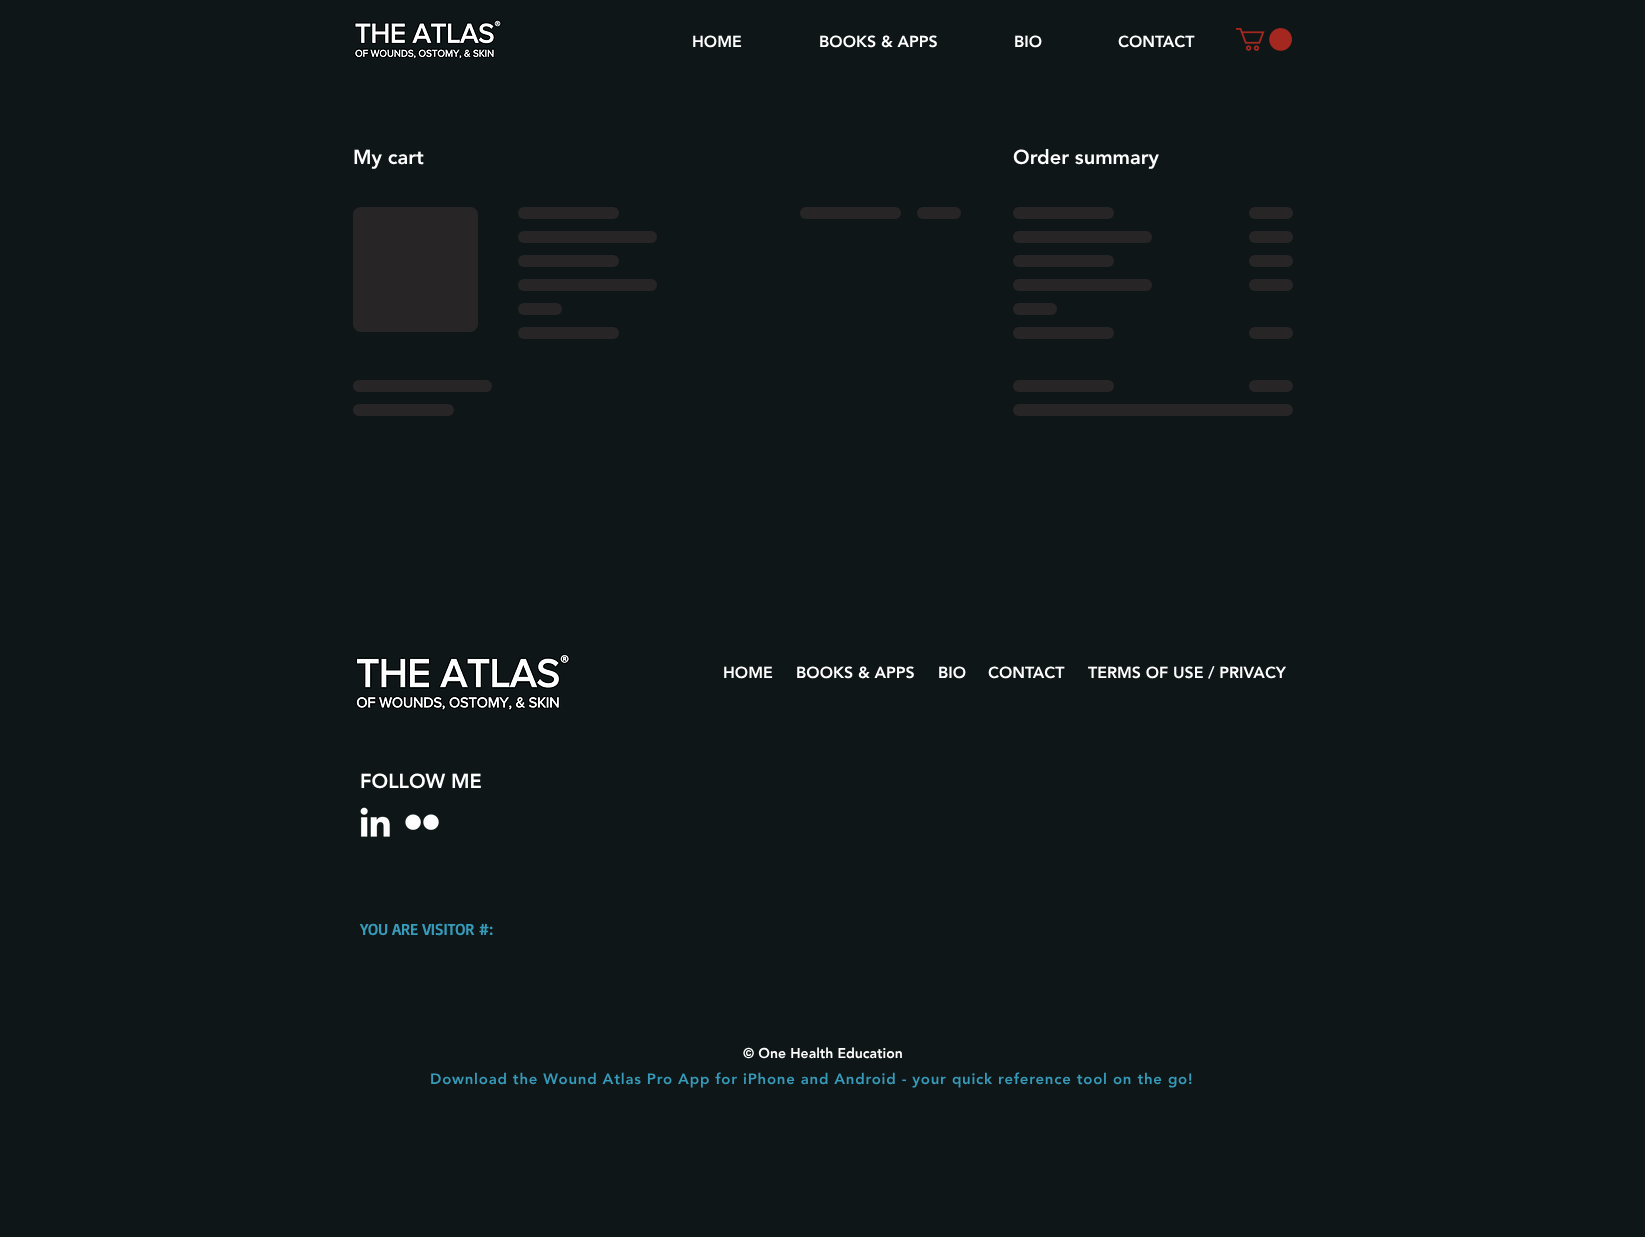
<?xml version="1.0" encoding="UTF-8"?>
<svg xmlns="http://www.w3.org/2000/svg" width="1645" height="1237">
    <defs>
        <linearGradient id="g1" gradientUnits="userSpaceOnUse" x1="353" y1="270" x2="853" y2="270"><stop offset="0.25" stop-color="#272526"/><stop offset="0.37" stop-color="#3E3435"/><stop offset="0.63" stop-color="#272526"/></linearGradient>
        <linearGradient id="g2" gradientUnits="userSpaceOnUse" x1="518" y1="213" x2="922" y2="213"><stop offset="0.25" stop-color="#272526"/><stop offset="0.37" stop-color="#3E3435"/><stop offset="0.63" stop-color="#272526"/></linearGradient>
        <linearGradient id="g3" gradientUnits="userSpaceOnUse" x1="518" y1="237" x2="1074" y2="237"><stop offset="0.25" stop-color="#272526"/><stop offset="0.37" stop-color="#3E3435"/><stop offset="0.63" stop-color="#272526"/></linearGradient>
        <linearGradient id="g4" gradientUnits="userSpaceOnUse" x1="518" y1="261" x2="922" y2="261"><stop offset="0.25" stop-color="#272526"/><stop offset="0.37" stop-color="#3E3435"/><stop offset="0.63" stop-color="#272526"/></linearGradient>
        <linearGradient id="g5" gradientUnits="userSpaceOnUse" x1="518" y1="285" x2="1074" y2="285"><stop offset="0.25" stop-color="#272526"/><stop offset="0.37" stop-color="#3E3435"/><stop offset="0.63" stop-color="#272526"/></linearGradient>
        <linearGradient id="g6" gradientUnits="userSpaceOnUse" x1="518" y1="309" x2="694" y2="309"><stop offset="0.25" stop-color="#272526"/><stop offset="0.37" stop-color="#3E3435"/><stop offset="0.63" stop-color="#272526"/></linearGradient>
        <linearGradient id="g7" gradientUnits="userSpaceOnUse" x1="518" y1="333" x2="922" y2="333"><stop offset="0.25" stop-color="#272526"/><stop offset="0.37" stop-color="#3E3435"/><stop offset="0.63" stop-color="#272526"/></linearGradient>
        <linearGradient id="g8" gradientUnits="userSpaceOnUse" x1="800" y1="213" x2="1204" y2="213"><stop offset="0.25" stop-color="#272526"/><stop offset="0.37" stop-color="#3E3435"/><stop offset="0.63" stop-color="#272526"/></linearGradient>
        <linearGradient id="g9" gradientUnits="userSpaceOnUse" x1="917" y1="213" x2="1093" y2="213"><stop offset="0.25" stop-color="#272526"/><stop offset="0.37" stop-color="#3E3435"/><stop offset="0.63" stop-color="#272526"/></linearGradient>
        <linearGradient id="g10" gradientUnits="userSpaceOnUse" x1="353" y1="386" x2="909" y2="386"><stop offset="0.25" stop-color="#272526"/><stop offset="0.37" stop-color="#3E3435"/><stop offset="0.63" stop-color="#272526"/></linearGradient>
        <linearGradient id="g11" gradientUnits="userSpaceOnUse" x1="353" y1="410" x2="757" y2="410"><stop offset="0.25" stop-color="#272526"/><stop offset="0.37" stop-color="#3E3435"/><stop offset="0.63" stop-color="#272526"/></linearGradient>
        <linearGradient id="g12" gradientUnits="userSpaceOnUse" x1="1013" y1="213" x2="1417" y2="213"><stop offset="0.25" stop-color="#272526"/><stop offset="0.37" stop-color="#3E3435"/><stop offset="0.63" stop-color="#272526"/></linearGradient>
        <linearGradient id="g13" gradientUnits="userSpaceOnUse" x1="1249" y1="213" x2="1425" y2="213"><stop offset="0.25" stop-color="#272526"/><stop offset="0.37" stop-color="#3E3435"/><stop offset="0.63" stop-color="#272526"/></linearGradient>
        <linearGradient id="g14" gradientUnits="userSpaceOnUse" x1="1013" y1="237" x2="1569" y2="237"><stop offset="0.25" stop-color="#272526"/><stop offset="0.37" stop-color="#3E3435"/><stop offset="0.63" stop-color="#272526"/></linearGradient>
        <linearGradient id="g15" gradientUnits="userSpaceOnUse" x1="1249" y1="237" x2="1425" y2="237"><stop offset="0.25" stop-color="#272526"/><stop offset="0.37" stop-color="#3E3435"/><stop offset="0.63" stop-color="#272526"/></linearGradient>
        <linearGradient id="g16" gradientUnits="userSpaceOnUse" x1="1013" y1="261" x2="1417" y2="261"><stop offset="0.25" stop-color="#272526"/><stop offset="0.37" stop-color="#3E3435"/><stop offset="0.63" stop-color="#272526"/></linearGradient>
        <linearGradient id="g17" gradientUnits="userSpaceOnUse" x1="1249" y1="261" x2="1425" y2="261"><stop offset="0.25" stop-color="#272526"/><stop offset="0.37" stop-color="#3E3435"/><stop offset="0.63" stop-color="#272526"/></linearGradient>
        <linearGradient id="g18" gradientUnits="userSpaceOnUse" x1="1013" y1="285" x2="1569" y2="285"><stop offset="0.25" stop-color="#272526"/><stop offset="0.37" stop-color="#3E3435"/><stop offset="0.63" stop-color="#272526"/></linearGradient>
        <linearGradient id="g19" gradientUnits="userSpaceOnUse" x1="1249" y1="285" x2="1425" y2="285"><stop offset="0.25" stop-color="#272526"/><stop offset="0.37" stop-color="#3E3435"/><stop offset="0.63" stop-color="#272526"/></linearGradient>
        <linearGradient id="g20" gradientUnits="userSpaceOnUse" x1="1013" y1="309" x2="1189" y2="309"><stop offset="0.25" stop-color="#272526"/><stop offset="0.37" stop-color="#3E3435"/><stop offset="0.63" stop-color="#272526"/></linearGradient>
        <linearGradient id="g21" gradientUnits="userSpaceOnUse" x1="1013" y1="333" x2="1417" y2="333"><stop offset="0.25" stop-color="#272526"/><stop offset="0.37" stop-color="#3E3435"/><stop offset="0.63" stop-color="#272526"/></linearGradient>
        <linearGradient id="g22" gradientUnits="userSpaceOnUse" x1="1249" y1="333" x2="1425" y2="333"><stop offset="0.25" stop-color="#272526"/><stop offset="0.37" stop-color="#3E3435"/><stop offset="0.63" stop-color="#272526"/></linearGradient>
        <linearGradient id="g23" gradientUnits="userSpaceOnUse" x1="1013" y1="386" x2="1417" y2="386"><stop offset="0.25" stop-color="#272526"/><stop offset="0.37" stop-color="#3E3435"/><stop offset="0.63" stop-color="#272526"/></linearGradient>
        <linearGradient id="g24" gradientUnits="userSpaceOnUse" x1="1249" y1="386" x2="1425" y2="386"><stop offset="0.25" stop-color="#272526"/><stop offset="0.37" stop-color="#3E3435"/><stop offset="0.63" stop-color="#272526"/></linearGradient>
        <linearGradient id="g25" gradientUnits="userSpaceOnUse" x1="1013" y1="410" x2="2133" y2="410"><stop offset="0.25" stop-color="#272526"/><stop offset="0.37" stop-color="#3E3435"/><stop offset="0.63" stop-color="#272526"/></linearGradient>
    </defs>
    <rect width="100%" height="100%" fill="#0F1617"/>
    <image x="353" y="19" width="149" height="40" href="img_01.png"/>
    <text x="692" y="47" font-family="'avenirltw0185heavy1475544'" font-size="16" font-weight="900" fill="#FFFFFF">HOME</text>
    <text x="819" y="47" font-family="'avenirltw0185heavy1475544'" font-size="16" font-weight="900" fill="#FFFFFF">BOOKS &amp; APPS</text>
    <text x="1014" y="47" font-family="'avenirltw0185heavy1475544'" font-size="16" font-weight="900" fill="#FFFFFF">BIO</text>
    <text x="1118" y="47" font-family="'avenirltw0185heavy1475544'" font-size="16" font-weight="900" fill="#FFFFFF">CONTACT</text>
    <image x="1236" y="28" width="56" height="23" href="img_02.png"/>
    <text x="353" y="164" font-family="'avenirltw0185heavy1475544'" font-size="20" font-weight="900" fill="#FFFFFF">My cart</text>
    <rect x="353" y="207" width="125" height="125" rx="8" fill="url(#g1)"/>
    <rect x="518" y="207" width="101" height="12" rx="6" fill="url(#g2)"/>
    <rect x="518" y="231" width="139" height="12" rx="6" fill="url(#g3)"/>
    <rect x="518" y="255" width="101" height="12" rx="6" fill="url(#g4)"/>
    <rect x="518" y="279" width="139" height="12" rx="6" fill="url(#g5)"/>
    <rect x="518" y="303" width="44" height="12" rx="6" fill="url(#g6)"/>
    <rect x="518" y="327" width="101" height="12" rx="6" fill="url(#g7)"/>
    <rect x="800" y="207" width="101" height="12" rx="6" fill="url(#g8)"/>
    <rect x="917" y="207" width="44" height="12" rx="6" fill="url(#g9)"/>
    <rect x="353" y="380" width="139" height="12" rx="6" fill="url(#g10)"/>
    <rect x="353" y="404" width="101" height="12" rx="6" fill="url(#g11)"/>
    <text x="1013" y="164" font-family="'avenirltw0185heavy1475544'" font-size="20" font-weight="900" fill="#FFFFFF">Order summary</text>
    <rect x="1013" y="207" width="101" height="12" rx="6" fill="url(#g12)"/>
    <rect x="1249" y="207" width="44" height="12" rx="6" fill="url(#g13)"/>
    <rect x="1013" y="231" width="139" height="12" rx="6" fill="url(#g14)"/>
    <rect x="1249" y="231" width="44" height="12" rx="6" fill="url(#g15)"/>
    <rect x="1013" y="255" width="101" height="12" rx="6" fill="url(#g16)"/>
    <rect x="1249" y="255" width="44" height="12" rx="6" fill="url(#g17)"/>
    <rect x="1013" y="279" width="139" height="12" rx="6" fill="url(#g18)"/>
    <rect x="1249" y="279" width="44" height="12" rx="6" fill="url(#g19)"/>
    <rect x="1013" y="303" width="44" height="12" rx="6" fill="url(#g20)"/>
    <rect x="1013" y="327" width="101" height="12" rx="6" fill="url(#g21)"/>
    <rect x="1249" y="327" width="44" height="12" rx="6" fill="url(#g22)"/>
    <rect x="1013" y="380" width="101" height="12" rx="6" fill="url(#g23)"/>
    <rect x="1249" y="380" width="44" height="12" rx="6" fill="url(#g24)"/>
    <rect x="1013" y="404" width="280" height="12" rx="6" fill="url(#g25)"/>
    <image x="355" y="653" width="216" height="58" href="img_03.png"/>
    <text x="723" y="678" font-family="'avenirltw0185heavy1475544'" font-size="16" font-weight="900" fill="#FFFFFF">HOME</text>
    <text x="796" y="678" font-family="'avenirltw0185heavy1475544'" font-size="16" font-weight="900" fill="#FFFFFF">BOOKS &amp; APPS</text>
    <text x="938" y="678" font-family="'avenirltw0185heavy1475544'" font-size="16" font-weight="900" fill="#FFFFFF">BIO</text>
    <text x="988" y="678" font-family="'avenirltw0185heavy1475544'" font-size="16" font-weight="900" fill="#FFFFFF">CONTACT</text>
    <text x="1088" y="678" font-family="'avenirltw0185heavy1475544'" font-size="16" font-weight="900" fill="#FFFFFF">TERMS OF USE / PRIVACY</text>
    <text x="360" y="788" font-family="'avenirltw0185heavy1475544'" font-size="20" font-weight="900" fill="#FFFFFF">FOLLOW ME</text>
    <image x="360" y="807" width="30" height="30" href="img_04.png"/>
    <image x="405" y="814" width="34" height="16" href="img_05.png"/>
    <text x="360" y="935" font-family="Basic" font-size="16" font-weight="700" fill="#379AB9">YOU ARE VISITOR #:</text>
    <text x="743" y="1058" font-family="'avenirltw0185heavy1475544'" font-size="14" font-weight="900" fill="#FFFFFF">© One Health Education</text>
    <text x="430" y="1084" font-family="'avenirltw0185heavy1475544'" font-size="15" font-weight="900" letter-spacing="0.75" fill="#379AB9">Download the Wound Atlas Pro App for iPhone and Android - your quick reference tool on the go!</text>
</svg>
